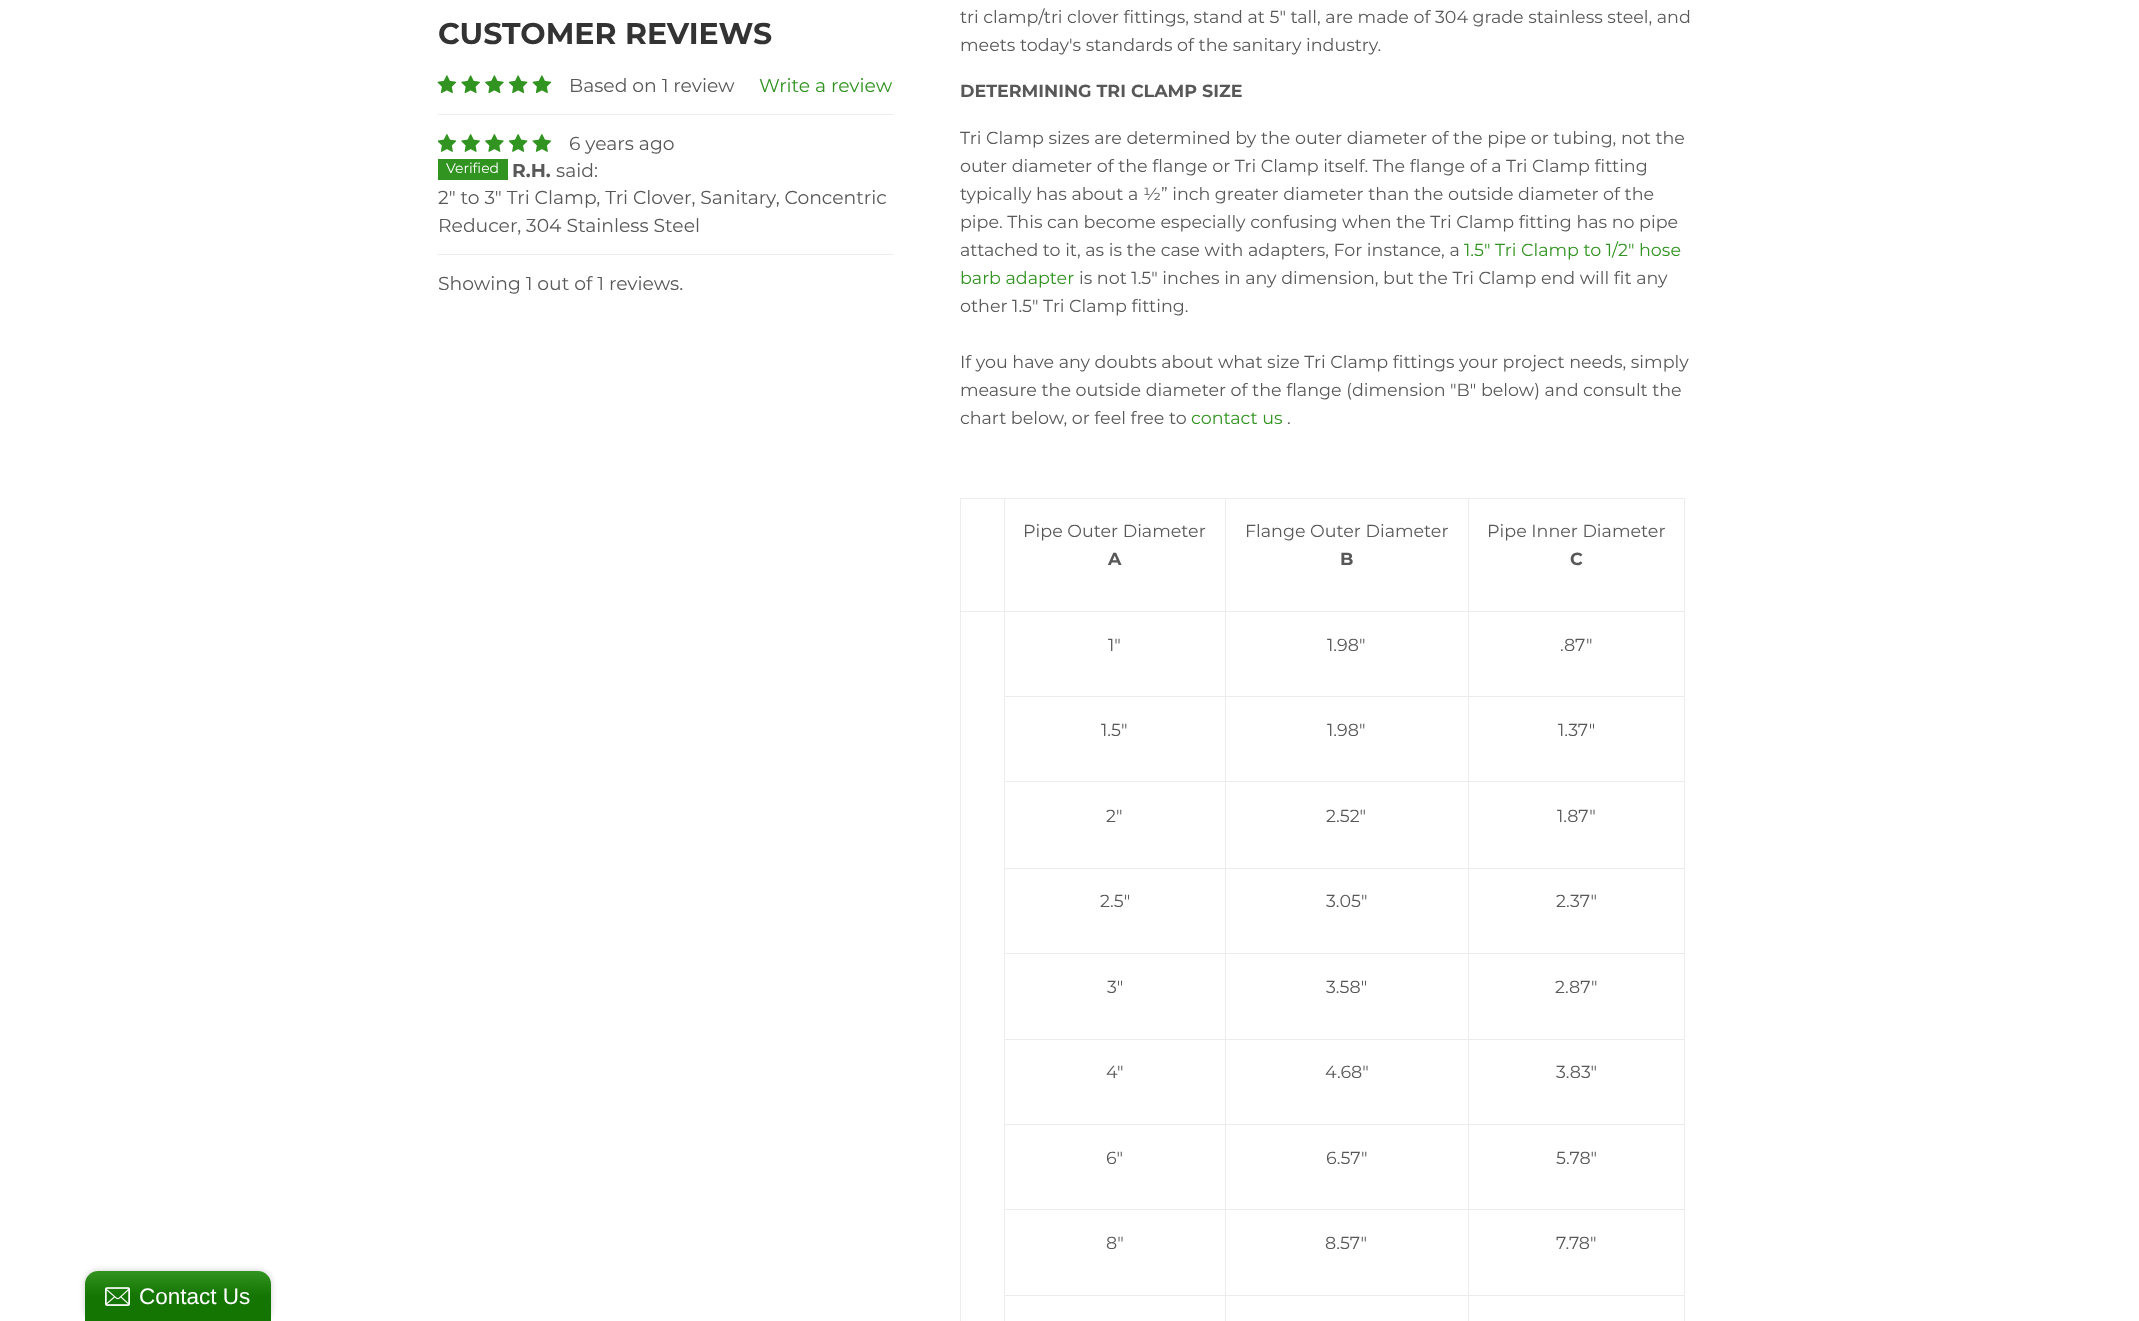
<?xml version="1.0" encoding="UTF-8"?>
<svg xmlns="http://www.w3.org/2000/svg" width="2139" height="1321">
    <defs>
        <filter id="blur1" x="-50%" y="-200%" width="200%" height="500%"><feGaussianBlur stdDeviation="3"/></filter>
        <linearGradient id="g1" gradientUnits="userSpaceOnUse" x1="178" y1="1271" x2="178" y2="1321"><stop offset="0" stop-color="#329321"/><stop offset="0.5" stop-color="#147503"/></linearGradient>
    </defs>
    <rect width="100%" height="100%" fill="#FFFFFF"/>
    <text x="438" y="44" font-family="Montserrat" font-size="30" font-weight="700" fill="#333333">CUSTOMER REVIEWS</text>
    <image x="437" y="75" width="20" height="19" href="img_01.png"/>
    <image x="461" y="75" width="19" height="19" href="img_02.png"/>
    <image x="485" y="75" width="19" height="19" href="img_03.png"/>
    <image x="508" y="75" width="20" height="19" href="img_04.png"/>
    <image x="532" y="75" width="20" height="19" href="img_01.png"/>
    <text x="569" y="92" font-family="Montserrat" font-size="18.75" fill="#585858">Based on 1 review</text>
    <text x="759" y="92" font-family="Montserrat" font-size="18.75" fill="#319320">Write a review</text>
    <rect x="438" y="114" width="455" height="1" fill="#ECECEC"/>
    <image x="438" y="134" width="19" height="18" href="img_05.png"/>
    <image x="461" y="134" width="19" height="18" href="img_06.png"/>
    <image x="485" y="134" width="19" height="18" href="img_07.png"/>
    <image x="508" y="134" width="20" height="18" href="img_08.png"/>
    <image x="532" y="134" width="20" height="18" href="img_09.png"/>
    <text x="569" y="150" font-family="Montserrat" font-size="18.75" fill="#585858">6 years ago</text>
    <rect x="438" y="159" width="70" height="21" fill="#319320"/>
    <text x="446" y="173" font-family="Montserrat" font-size="14" fill="#FFFFFF">Verified</text>
    <text x="512" y="177" font-family="Montserrat" font-size="18.75" font-weight="700" fill="#585858">R.H.</text>
    <text x="556" y="177" font-family="Montserrat" font-size="18.75" fill="#585858">said:</text>
    <text font-family="Montserrat" font-size="18.75" fill="#585858">
        <tspan x="438" y="204">2" to 3" Tri Clamp, Tri Clover, Sanitary, Concentric</tspan>
        <tspan x="438" y="232">Reducer, 304 Stainless Steel</tspan>
    </text>
    <rect x="438" y="254" width="455" height="1" fill="#ECECEC"/>
    <text x="438" y="290" font-family="Montserrat" font-size="18.75" fill="#585858">Showing 1 out of 1 reviews.</text>
    <text font-family="Montserrat" font-size="17.5" fill="#585858">
        <tspan x="960" y="23">tri clamp/tri clover fittings, stand at 5" tall, are made of 304 grade stainless steel, and</tspan>
        <tspan x="960" y="51">meets today's standards of the sanitary industry.</tspan>
    </text>
    <text x="960" y="97" font-family="Montserrat" font-size="17.5" font-weight="700" fill="#585858">DETERMINING TRI CLAMP SIZE</text>
    <text font-family="Montserrat" font-size="17.5" fill="#585858">
        <tspan x="960" y="144">Tri Clamp sizes are determined by the outer diameter of the pipe or tubing, not the</tspan>
        <tspan x="960" y="172">outer diameter of the flange or Tri Clamp itself. The flange of a Tri Clamp fitting</tspan>
        <tspan x="960" y="200">typically has about a ½” inch greater diameter than the outside diameter of the</tspan>
        <tspan x="960" y="228">pipe. This can become especially confusing when the Tri Clamp fitting has no pipe</tspan>
        <tspan x="960" y="256">attached to it, as is the case with adapters, For instance, a</tspan>
    </text>
    <text x="1464" y="256" font-family="Montserrat" font-size="17.5" fill="#319320">1.5" Tri Clamp to 1/2" hose</text>
    <text x="960" y="284" font-family="Montserrat" font-size="17.5" fill="#319320">barb adapter</text>
    <text x="1079" y="284" font-family="Montserrat" font-size="17.5" fill="#585858">is not 1.5" inches in any dimension, but the Tri Clamp end will fit any</text>
    <text x="960" y="312" font-family="Montserrat" font-size="17.5" fill="#585858">other 1.5" Tri Clamp fitting.</text>
    <text font-family="Montserrat" font-size="17.5" fill="#585858">
        <tspan x="960" y="368">If you have any doubts about what size Tri Clamp fittings your project needs, simply</tspan>
        <tspan x="960" y="396">measure the outside diameter of the flange (dimension "B" below) and consult the</tspan>
        <tspan x="960" y="424">chart below, or feel free to</tspan>
    </text>
    <text x="1191" y="424" font-family="Montserrat" font-size="17.5" fill="#319320">contact us</text>
    <text x="1287" y="424" font-family="Montserrat" font-size="17.5" fill="#585858">.</text>
    <rect x="1468" y="498" width="217" height="1" fill="#ECECEC"/>
    <rect x="1468" y="611" width="217" height="1" fill="#ECECEC"/>
    <rect x="1468" y="696" width="217" height="1" fill="#ECECEC"/>
    <rect x="1468" y="781" width="217" height="1" fill="#ECECEC"/>
    <rect x="1468" y="868" width="217" height="1" fill="#ECECEC"/>
    <rect x="1468" y="953" width="217" height="1" fill="#ECECEC"/>
    <rect x="1468" y="1039" width="217" height="1" fill="#ECECEC"/>
    <rect x="1468" y="1124" width="217" height="1" fill="#ECECEC"/>
    <rect x="1468" y="1209" width="217" height="1" fill="#ECECEC"/>
    <rect x="1468" y="1295" width="217" height="1" fill="#ECECEC"/>
    <rect x="1468" y="1295" width="1" height="26" fill="#ECECEC"/>
    <rect x="1225" y="1295" width="244" height="1" fill="#ECECEC"/>
    <rect x="1468" y="1209" width="1" height="87" fill="#ECECEC"/>
    <rect x="1225" y="1209" width="244" height="1" fill="#ECECEC"/>
    <rect x="1468" y="1124" width="1" height="86" fill="#ECECEC"/>
    <rect x="1225" y="1124" width="244" height="1" fill="#ECECEC"/>
    <rect x="1468" y="1039" width="1" height="86" fill="#ECECEC"/>
    <rect x="1225" y="1039" width="244" height="1" fill="#ECECEC"/>
    <rect x="1468" y="953" width="1" height="87" fill="#ECECEC"/>
    <rect x="1225" y="953" width="244" height="1" fill="#ECECEC"/>
    <rect x="1468" y="868" width="1" height="86" fill="#ECECEC"/>
    <rect x="1225" y="868" width="244" height="1" fill="#ECECEC"/>
    <rect x="1468" y="781" width="1" height="88" fill="#ECECEC"/>
    <rect x="1225" y="781" width="244" height="1" fill="#ECECEC"/>
    <rect x="1468" y="696" width="1" height="87" fill="#ECECEC"/>
    <rect x="1225" y="696" width="244" height="1" fill="#ECECEC"/>
    <rect x="1468" y="611" width="1" height="87" fill="#ECECEC"/>
    <rect x="1225" y="611" width="244" height="1" fill="#ECECEC"/>
    <rect x="1468" y="498" width="1" height="115" fill="#ECECEC"/>
    <rect x="1225" y="498" width="244" height="1" fill="#ECECEC"/>
    <rect x="1225" y="1295" width="1" height="26" fill="#ECECEC"/>
    <rect x="1004" y="1295" width="222" height="1" fill="#ECECEC"/>
    <rect x="1225" y="1209" width="1" height="87" fill="#ECECEC"/>
    <rect x="1004" y="1209" width="222" height="1" fill="#ECECEC"/>
    <rect x="1225" y="1124" width="1" height="86" fill="#ECECEC"/>
    <rect x="1004" y="1124" width="222" height="1" fill="#ECECEC"/>
    <rect x="1225" y="1039" width="1" height="86" fill="#ECECEC"/>
    <rect x="1004" y="1039" width="222" height="1" fill="#ECECEC"/>
    <rect x="1225" y="953" width="1" height="87" fill="#ECECEC"/>
    <rect x="1004" y="953" width="222" height="1" fill="#ECECEC"/>
    <rect x="1225" y="868" width="1" height="86" fill="#ECECEC"/>
    <rect x="1004" y="868" width="222" height="1" fill="#ECECEC"/>
    <rect x="1225" y="781" width="1" height="88" fill="#ECECEC"/>
    <rect x="1004" y="781" width="222" height="1" fill="#ECECEC"/>
    <rect x="1225" y="696" width="1" height="87" fill="#ECECEC"/>
    <rect x="1004" y="696" width="222" height="1" fill="#ECECEC"/>
    <rect x="1225" y="611" width="1" height="87" fill="#ECECEC"/>
    <rect x="1004" y="611" width="222" height="1" fill="#ECECEC"/>
    <rect x="1225" y="498" width="1" height="115" fill="#ECECEC"/>
    <rect x="1004" y="498" width="222" height="1" fill="#ECECEC"/>
    <rect x="1004" y="1295" width="1" height="26" fill="#ECECEC"/>
    <rect x="1004" y="1209" width="1" height="87" fill="#ECECEC"/>
    <rect x="1004" y="1124" width="1" height="86" fill="#ECECEC"/>
    <rect x="1004" y="1039" width="1" height="86" fill="#ECECEC"/>
    <rect x="1004" y="953" width="1" height="87" fill="#ECECEC"/>
    <rect x="1004" y="868" width="1" height="86" fill="#ECECEC"/>
    <rect x="1004" y="781" width="1" height="88" fill="#ECECEC"/>
    <rect x="1004" y="696" width="1" height="87" fill="#ECECEC"/>
    <rect x="1004" y="611" width="1" height="87" fill="#ECECEC"/>
    <rect x="960" y="611" width="45" height="1" fill="#ECECEC"/>
    <rect x="1004" y="498" width="1" height="115" fill="#ECECEC"/>
    <rect x="960" y="498" width="45" height="1" fill="#ECECEC"/>
    <rect x="960" y="611" width="1" height="710" fill="#ECECEC"/>
    <rect x="960" y="498" width="1" height="115" fill="#ECECEC"/>
    <text x="1023" y="537" font-family="Montserrat" font-size="17.5" fill="#585858">Pipe Outer Diameter</text>
    <text x="1108" y="565" font-family="Montserrat" font-size="17.5" font-weight="700" fill="#585858">A</text>
    <text x="1245" y="537" font-family="Montserrat" font-size="17.5" fill="#585858">Flange Outer Diameter</text>
    <text x="1340" y="565" font-family="Montserrat" font-size="17.5" font-weight="700" fill="#585858">B</text>
    <rect x="1684" y="1295" width="1" height="26" fill="#ECECEC"/>
    <rect x="1684" y="1209" width="1" height="87" fill="#ECECEC"/>
    <rect x="1684" y="1124" width="1" height="86" fill="#ECECEC"/>
    <rect x="1684" y="1039" width="1" height="86" fill="#ECECEC"/>
    <rect x="1684" y="953" width="1" height="87" fill="#ECECEC"/>
    <rect x="1684" y="868" width="1" height="86" fill="#ECECEC"/>
    <rect x="1684" y="781" width="1" height="88" fill="#ECECEC"/>
    <rect x="1684" y="696" width="1" height="87" fill="#ECECEC"/>
    <rect x="1684" y="611" width="1" height="87" fill="#ECECEC"/>
    <rect x="1684" y="498" width="1" height="115" fill="#ECECEC"/>
    <text x="1487" y="537" font-family="Montserrat" font-size="17.5" fill="#585858">Pipe Inner Diameter</text>
    <text x="1570" y="565" font-family="Montserrat" font-size="17.5" font-weight="700" fill="#585858">C</text>
    <text x="1108" y="651" font-family="Montserrat" font-size="17.5" fill="#585858">1"</text>
    <text x="1327" y="651" font-family="Montserrat" font-size="17.5" fill="#585858">1.98"</text>
    <text x="1560" y="651" font-family="Montserrat" font-size="17.5" fill="#585858">.87"</text>
    <text x="1101" y="736" font-family="Montserrat" font-size="17.5" fill="#585858">1.5"</text>
    <text x="1327" y="736" font-family="Montserrat" font-size="17.5" fill="#585858">1.98"</text>
    <text x="1558" y="736" font-family="Montserrat" font-size="17.5" fill="#585858">1.37"</text>
    <text x="1106" y="822" font-family="Montserrat" font-size="17.5" fill="#585858">2"</text>
    <text x="1326" y="822" font-family="Montserrat" font-size="17.5" fill="#585858">2.52"</text>
    <text x="1557" y="822" font-family="Montserrat" font-size="17.5" fill="#585858">1.87"</text>
    <text x="1100" y="907" font-family="Montserrat" font-size="17.5" fill="#585858">2.5"</text>
    <text x="1326" y="907" font-family="Montserrat" font-size="17.5" fill="#585858">3.05"</text>
    <text x="1556" y="907" font-family="Montserrat" font-size="17.5" fill="#585858">2.37"</text>
    <text x="1107" y="993" font-family="Montserrat" font-size="17.5" fill="#585858">3"</text>
    <text x="1326" y="993" font-family="Montserrat" font-size="17.5" fill="#585858">3.58"</text>
    <text x="1555" y="993" font-family="Montserrat" font-size="17.5" fill="#585858">2.87"</text>
    <text x="1106" y="1078" font-family="Montserrat" font-size="17.5" fill="#585858">4"</text>
    <text x="1325" y="1078" font-family="Montserrat" font-size="17.5" fill="#585858">4.68"</text>
    <text x="1556" y="1078" font-family="Montserrat" font-size="17.5" fill="#585858">3.83"</text>
    <text x="1106" y="1164" font-family="Montserrat" font-size="17.5" fill="#585858">6"</text>
    <text x="1326" y="1164" font-family="Montserrat" font-size="17.5" fill="#585858">6.57"</text>
    <text x="1556" y="1164" font-family="Montserrat" font-size="17.5" fill="#585858">5.78"</text>
    <text x="1106" y="1249" font-family="Montserrat" font-size="17.5" fill="#585858">8"</text>
    <text x="1325" y="1249" font-family="Montserrat" font-size="17.5" fill="#585858">8.57"</text>
    <text x="1556" y="1249" font-family="Montserrat" font-size="17.5" fill="#585858">7.78"</text>
    <rect x="85" y="1271" width="186" height="50" rx="13" fill="#000000" fill-opacity="0.2" filter="url(#blur1)"/>
    <path d="M 98 1271 H 258 C 265 1271 271 1277 271 1284 V 1321 H 85 V 1284 C 85 1277 91 1271 98 1271 Z" fill="url(#g1)"/>
    <image x="105" y="1287" width="25" height="19" href="img_10.png"/>
    <text x="139" y="1304" font-family="Liberation Sans" font-size="22.5" fill="#FFFFFF">Contact Us</text>
</svg>
